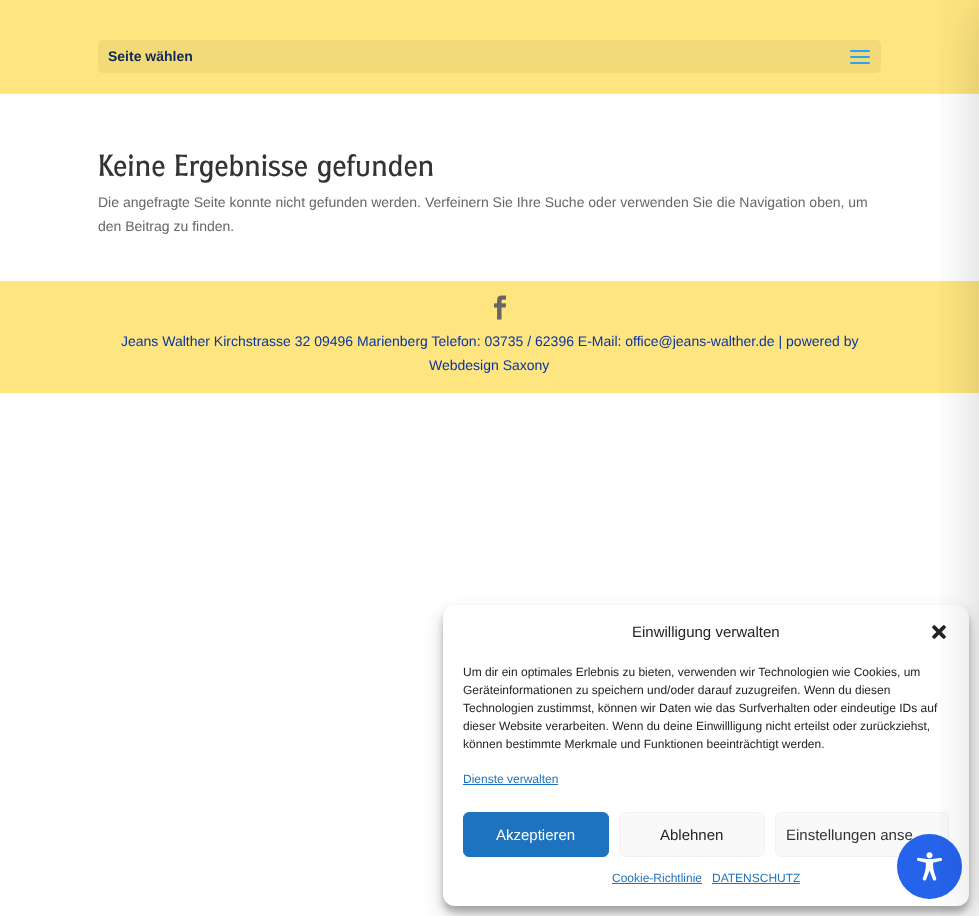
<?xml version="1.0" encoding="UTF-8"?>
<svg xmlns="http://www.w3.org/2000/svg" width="979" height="916">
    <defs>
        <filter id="blur1" x="-50%" y="-200%" width="200%" height="500%"><feGaussianBlur stdDeviation="3"/></filter>
        <filter id="blur2" x="-50%" y="-200%" width="200%" height="500%"><feGaussianBlur stdDeviation="10"/></filter>
        <filter id="blur3" x="-50%" y="-200%" width="200%" height="500%"><feGaussianBlur stdDeviation="30"/></filter>
    </defs>
    <rect width="100%" height="100%" fill="#FFFFFF"/>
    <rect x="0" y="93" width="979" height="1" fill="#E6E6E6"/>
    <rect x="0" y="0" width="979" height="93" fill="#FFE57F"/>
    <rect x="98" y="40" width="783" height="33" rx="5" fill="#F2DA79"/>
    <text x="108" y="61" font-family="Liberation Sans" font-size="14" font-weight="700" fill="#122955">Seite wählen</text>
    <image x="850" y="50" width="20" height="14" href="img_01.png"/>
    <text x="98" y="176" font-family="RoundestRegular" font-size="30" fill="#333333">Keine Ergebnisse gefunden</text>
    <text font-family="Liberation Sans" font-size="14" fill="#666666">
        <tspan x="98" y="207">Die angefragte Seite konnte nicht gefunden werden. Verfeinern Sie Ihre Suche oder verwenden Sie die Navigation oben, um</tspan>
        <tspan x="98" y="231">den Beitrag zu finden.</tspan>
    </text>
    <rect x="0" y="281" width="979" height="112" fill="#FFE57F"/>
    <image x="494" y="295" width="12" height="25" href="img_02.png"/>
    <text x="121" y="346" font-family="Liberation Sans" font-size="14" fill="#0834A3">Jeans Walther Kirchstrasse 32 09496 Marienberg Telefon: 03735 / 62396 E-Mail: office@jeans-walther.de | powered by</text>
    <text x="429" y="370" font-family="Liberation Sans" font-size="14" fill="#0834A3">Webdesign Saxony</text>
    <rect x="443" y="611" width="526" height="301" rx="12" fill="#000000" fill-opacity="0.23" filter="url(#blur1)"/>
    <rect x="443" y="615" width="526" height="301" rx="12" fill="#000000" fill-opacity="0.19" filter="url(#blur2)"/>
    <rect x="443" y="605" width="526" height="301" rx="12" fill="#FFFFFF"/>
    <image x="932" y="625" width="14" height="14" href="img_03.png"/>
    <rect x="775.5" y="812.5" width="173" height="44" rx="5.5" fill="#F9F9F9" stroke="#F2F2F2"/>
    <text x="786" y="840" font-family="Liberation Sans" font-size="15" fill="#333333">Einstellungen anse</text>
    <circle cx="929.5" cy="866.5" r="32.5" fill="#2563EB"/>
    <image x="917" y="852" width="25" height="29" href="img_04.png"/>
    <rect x="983" y="10" width="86" height="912" fill="#000000" fill-opacity="0.2" filter="url(#blur3)"/>
    <text x="632" y="637" font-family="Liberation Sans" font-size="15" fill="#222222">Einwilligung verwalten</text>
    <text font-family="Liberation Sans" font-size="12" fill="#222222">
        <tspan x="463" y="676">Um dir ein optimales Erlebnis zu bieten, verwenden wir Technologien wie Cookies, um</tspan>
        <tspan x="463" y="694">Geräteinformationen zu speichern und/oder darauf zuzugreifen. Wenn du diesen</tspan>
        <tspan x="463" y="712">Technologien zustimmst, können wir Daten wie das Surfverhalten oder eindeutige IDs auf</tspan>
        <tspan x="463" y="730">dieser Website verarbeiten. Wenn du deine Einwillligung nicht erteilst oder zurückziehst,</tspan>
        <tspan x="463" y="748">können bestimmte Merkmale und Funktionen beeinträchtigt werden.</tspan>
    </text>
    <text x="463" y="783" font-family="Liberation Sans" font-size="12" fill="#1E73BE">Dienste verwalten</text>
    <rect x="463" y="784" width="95" height="1" fill="#1E73BE"/>
    <rect x="463.5" y="812.5" width="145" height="44" rx="5.5" fill="#1E73BE" stroke="#1E73BE"/>
    <text x="496" y="840" font-family="Liberation Sans" font-size="15" fill="#FFFFFF">Akzeptieren</text>
    <rect x="619.5" y="812.5" width="145" height="44" rx="5.5" fill="#F9F9F9" stroke="#F2F2F2"/>
    <text x="660" y="840" font-family="Liberation Sans" font-size="15" fill="#222222">Ablehnen</text>
    <text x="612" y="882" font-family="Liberation Sans" font-size="12" fill="#1E73BE">Cookie-Richtlinie</text>
    <rect x="612" y="883" width="90" height="1" fill="#1E73BE"/>
    <text x="712" y="882" font-family="Liberation Sans" font-size="12" fill="#1E73BE">DATENSCHUTZ</text>
    <rect x="712" y="883" width="88" height="1" fill="#1E73BE"/>
</svg>
